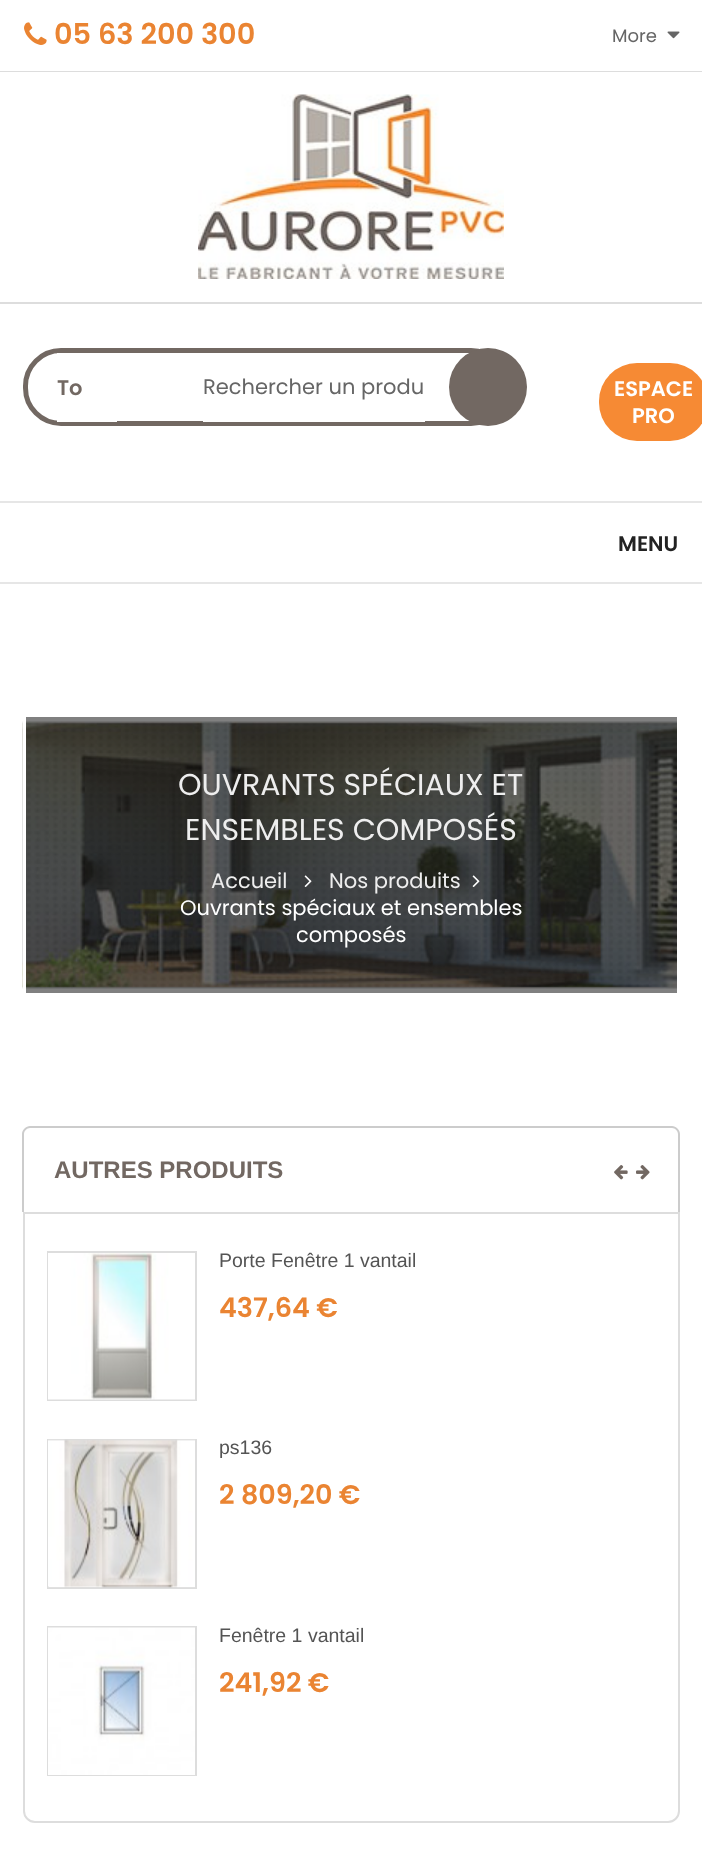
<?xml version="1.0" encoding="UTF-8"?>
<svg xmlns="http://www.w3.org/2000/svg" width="702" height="1859">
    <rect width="100%" height="100%" fill="#FFFFFF"/>
    <rect x="26" y="717" width="651" height="276" fill="#808080"/>
    <rect x="0" y="71" width="702" height="1" fill="#DDDDDD"/>
    <image x="24" y="22" width="23" height="23" href="img_01.png"/>
    <text x="54" y="44" font-family="Poppins" font-size="28.75" font-weight="600" fill="#EA8432">05 63 200 300</text>
    <text x="612" y="42" font-family="Poppins" font-size="18" fill="#666666">More</text>
    <image x="667" y="31" width="13" height="8" href="img_02.png"/>
    <rect x="0" y="302" width="702" height="2" fill="#DDDDDD"/>
    <image x="198" y="94" width="306" height="185" href="img_03.png"/>
    <rect x="25.5" y="350.5" width="481" height="73" rx="35.5" fill="none" stroke="#726862" stroke-width="5"/>
    <rect x="57" y="353" width="60" height="69" fill="#FFFFFF"/>
    <text x="57" y="395" font-family="Poppins" font-size="21" font-weight="600" fill="#726862">To</text>
    <rect x="203" y="421" width="222" height="1" fill="#FFFFFF"/>
    <text x="203" y="394" font-family="Poppins" font-size="21" fill="#666666">Rechercher un produ</text>
    <circle cx="488" cy="387" r="39" fill="#726862"/>
    <rect x="599" y="363" width="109" height="78" rx="38" fill="#F68A34"/>
    <text x="614" y="396" font-family="Poppins" font-size="21" font-weight="600" fill="#FFFFFF">ESPACE</text>
    <text x="632" y="423" font-family="Poppins" font-size="21" font-weight="600" fill="#FFFFFF">PRO</text>
    <rect x="0" y="501" width="702" height="2" fill="#E6E6E6"/>
    <rect x="0" y="582" width="702" height="2" fill="#E6E6E6"/>
    <text x="618" y="551" font-family="Poppins" font-size="21" font-weight="600" fill="#222222">MENU</text>
    <image x="22" y="721" width="655" height="268" href="img_04.png"/>
    <rect x="24.5" y="715.5" width="654" height="279" fill="none" stroke="#FFFFFF" stroke-width="3"/>
    <text x="178" y="795" font-family="Poppins" font-size="30" fill="#EEEEEE">OUVRANTS SPÉCIAUX ET</text>
    <text x="185" y="840" font-family="Poppins" font-size="30" fill="#EEEEEE">ENSEMBLES COMPOSÉS</text>
    <text x="211" y="888" font-family="Poppins" font-size="21" fill="#EEEEEE">Accueil</text>
    <image x="304" y="875" width="8" height="12" href="img_05.png"/>
    <text x="329" y="888" font-family="Poppins" font-size="21" fill="#EEEEEE">Nos produits</text>
    <image x="472" y="875" width="8" height="12" href="img_06.png"/>
    <text x="180" y="915" font-family="Poppins" font-size="21" fill="#FFFFFF">Ouvrants spéciaux et ensembles</text>
    <text x="296" y="942" font-family="Poppins" font-size="21" fill="#FFFFFF">composés</text>
    <path d="M 30 1126 H 672 C 676 1126 680 1130 680 1134 V 1212 H 22 V 1134 C 22 1130 26 1126 30 1126 Z M 30 1128 H 672 C 675 1128 678 1131 678 1134 V 1212 H 24 V 1134 C 24 1131 27 1128 30 1128 Z" fill="#CCCCCC" fill-rule="evenodd"/>
    <text x="54" y="1178" font-family="Liberation Sans" font-size="24" font-weight="700" fill="#726862">AUTRES PRODUITS</text>
    <image x="614" y="1165" width="14" height="15" href="img_07.png"/>
    <image x="636" y="1165" width="14" height="15" href="img_08.png"/>
    <path d="M 24 1213 H 679 V 1811 C 679 1817 674 1822 668 1822 H 35 C 29 1822 24 1817 24 1811 Z" fill="none" stroke="#DDDDDD" stroke-width="2"/>
    <rect x="48" y="1252" width="148" height="148" fill="none" stroke="#DDDDDD" stroke-width="2"/>
    <image x="48" y="1253" width="147" height="147" href="img_09.png"/>
    <text x="219" y="1267" font-family="Liberation Sans" font-size="19.5" fill="#545454">Porte Fenêtre 1 vantail</text>
    <text x="219" y="1317" font-family="Poppins" font-size="27" font-weight="600" fill="#EA8432">437,64 €</text>
    <rect x="48" y="1440" width="148" height="148" fill="none" stroke="#DDDDDD" stroke-width="2"/>
    <image x="48" y="1439" width="147" height="149" href="img_10.png"/>
    <text x="219" y="1454" font-family="Liberation Sans" font-size="19.5" fill="#545454">ps136</text>
    <text x="219" y="1504" font-family="Poppins" font-size="27" font-weight="600" fill="#EA8432">2 809,20 €</text>
    <rect x="48" y="1627" width="148" height="148" fill="none" stroke="#DDDDDD" stroke-width="2"/>
    <image x="48" y="1627" width="147" height="148" href="img_11.png"/>
    <text x="219" y="1642" font-family="Liberation Sans" font-size="19.5" fill="#545454">Fenêtre 1 vantail</text>
    <text x="219" y="1692" font-family="Poppins" font-size="27" font-weight="600" fill="#EA8432">241,92 €</text>
</svg>
